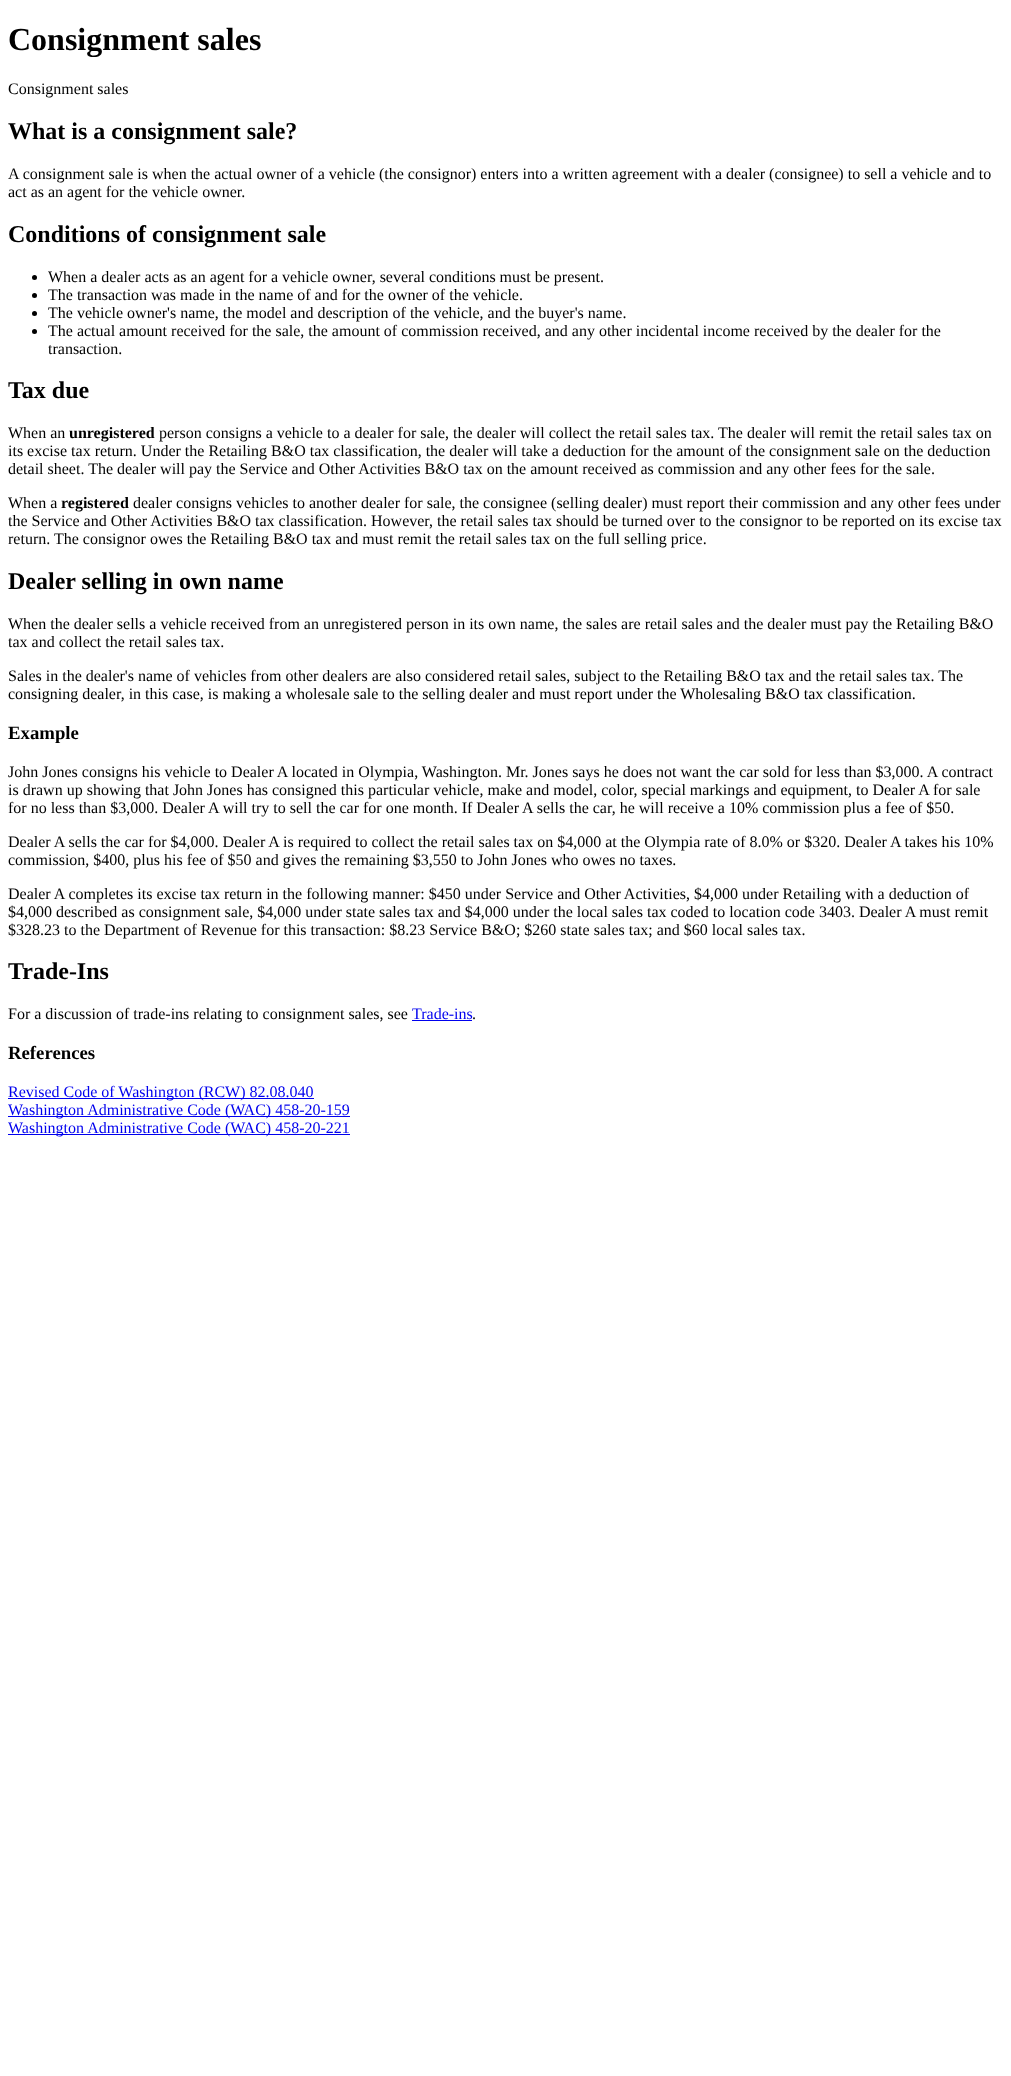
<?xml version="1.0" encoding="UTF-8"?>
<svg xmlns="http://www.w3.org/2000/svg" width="1011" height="2076">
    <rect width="100%" height="100%" fill="#FFFFFF"/>
    <text x="8" y="50" font-family="Liberation Serif" font-size="32" font-weight="700" fill="#000000">Consignment sales</text>
    <text x="8" y="94" font-family="Liberation Serif" font-size="16" fill="#000000">Consignment sales</text>
    <text x="8" y="139" font-family="Liberation Serif" font-size="24" font-weight="700" fill="#000000">What is a consignment sale?</text>
    <text font-family="Liberation Serif" font-size="16" fill="#000000">
        <tspan x="8" y="179">A consignment sale is when the actual owner of a vehicle (the consignor) enters into a written agreement with a dealer (consignee) to sell a vehicle and to</tspan>
        <tspan x="8" y="197">act as an agent for the vehicle owner.</tspan>
    </text>
    <text x="8" y="242" font-family="Liberation Serif" font-size="24" font-weight="700" fill="#000000">Conditions of consignment sale</text>
    <circle cx="34.5" cy="277.5" r="2.5" fill="#000000"/>
    <text x="48" y="282" font-family="Liberation Serif" font-size="16" fill="#000000">When a dealer acts as an agent for a vehicle owner, several conditions must be present.</text>
    <circle cx="34.5" cy="295.5" r="2.5" fill="#000000"/>
    <text x="48" y="300" font-family="Liberation Serif" font-size="16" fill="#000000">The transaction was made in the name of and for the owner of the vehicle.</text>
    <circle cx="34.5" cy="313.5" r="2.5" fill="#000000"/>
    <text x="48" y="318" font-family="Liberation Serif" font-size="16" fill="#000000">The vehicle owner's name, the model and description of the vehicle, and the buyer's name.</text>
    <circle cx="34.5" cy="331.5" r="2.5" fill="#000000"/>
    <text font-family="Liberation Serif" font-size="16" fill="#000000">
        <tspan x="48" y="336">The actual amount received for the sale, the amount of commission received, and any other incidental income received by the dealer for the</tspan>
        <tspan x="48" y="354">transaction.</tspan>
    </text>
    <text x="8" y="398" font-family="Liberation Serif" font-size="24" font-weight="700" fill="#000000">Tax due</text>
    <text x="8" y="438" font-family="Liberation Serif" font-size="16" fill="#000000">When an</text>
    <text x="69" y="438" font-family="Liberation Serif" font-size="16" font-weight="700" fill="#000000">unregistered</text>
    <text x="159" y="438" font-family="Liberation Serif" font-size="16" fill="#000000">person consigns a vehicle to a dealer for sale, the dealer will collect the retail sales tax. The dealer will remit the retail sales tax on</text>
    <text font-family="Liberation Serif" font-size="16" fill="#000000">
        <tspan x="8" y="456">its excise tax return. Under the Retailing B&amp;O tax classification, the dealer will take a deduction for the amount of the consignment sale on the deduction</tspan>
        <tspan x="8" y="474">detail sheet. The dealer will pay the Service and Other Activities B&amp;O tax on the amount received as commission and any other fees for the sale.</tspan>
    </text>
    <text x="8" y="508" font-family="Liberation Serif" font-size="16" fill="#000000">When a</text>
    <text x="61" y="508" font-family="Liberation Serif" font-size="16" font-weight="700" fill="#000000">registered</text>
    <text x="133" y="508" font-family="Liberation Serif" font-size="16" fill="#000000">dealer consigns vehicles to another dealer for sale, the consignee (selling dealer) must report their commission and any other fees under</text>
    <text font-family="Liberation Serif" font-size="16" fill="#000000">
        <tspan x="8" y="526">the Service and Other Activities B&amp;O tax classification. However, the retail sales tax should be turned over to the consignor to be reported on its excise tax</tspan>
        <tspan x="8" y="544">return. The consignor owes the Retailing B&amp;O tax and must remit the retail sales tax on the full selling price.</tspan>
    </text>
    <text x="8" y="589" font-family="Liberation Serif" font-size="24" font-weight="700" fill="#000000">Dealer selling in own name</text>
    <text font-family="Liberation Serif" font-size="16" fill="#000000">
        <tspan x="8" y="629">When the dealer sells a vehicle received from an unregistered person in its own name, the sales are retail sales and the dealer must pay the Retailing B&amp;O</tspan>
        <tspan x="8" y="647">tax and collect the retail sales tax.</tspan>
    </text>
    <text font-family="Liberation Serif" font-size="16" fill="#000000">
        <tspan x="8" y="681">Sales in the dealer's name of vehicles from other dealers are also considered retail sales, subject to the Retailing B&amp;O tax and the retail sales tax. The</tspan>
        <tspan x="8" y="699">consigning dealer, in this case, is making a wholesale sale to the selling dealer and must report under the Wholesaling B&amp;O tax classification.</tspan>
    </text>
    <text x="8" y="739" font-family="Liberation Serif" font-size="18.75" font-weight="700" fill="#000000">Example</text>
    <text font-family="Liberation Serif" font-size="16" fill="#000000">
        <tspan x="8" y="777">John Jones consigns his vehicle to Dealer A located in Olympia, Washington. Mr. Jones says he does not want the car sold for less than $3,000. A contract</tspan>
        <tspan x="8" y="795">is drawn up showing that John Jones has consigned this particular vehicle, make and model, color, special markings and equipment, to Dealer A for sale</tspan>
        <tspan x="8" y="813">for no less than $3,000. Dealer A will try to sell the car for one month. If Dealer A sells the car, he will receive a 10% commission plus a fee of $50.</tspan>
    </text>
    <text font-family="Liberation Serif" font-size="16" fill="#000000">
        <tspan x="8" y="847">Dealer A sells the car for $4,000. Dealer A is required to collect the retail sales tax on $4,000 at the Olympia rate of 8.0% or $320. Dealer A takes his 10%</tspan>
        <tspan x="8" y="865">commission, $400, plus his fee of $50 and gives the remaining $3,550 to John Jones who owes no taxes.</tspan>
    </text>
    <text font-family="Liberation Serif" font-size="16" fill="#000000">
        <tspan x="8" y="899">Dealer A completes its excise tax return in the following manner: $450 under Service and Other Activities, $4,000 under Retailing with a deduction of</tspan>
        <tspan x="8" y="917">$4,000 described as consignment sale, $4,000 under state sales tax and $4,000 under the local sales tax coded to location code 3403. Dealer A must remit</tspan>
        <tspan x="8" y="935">$328.23 to the Department of Revenue for this transaction: $8.23 Service B&amp;O; $260 state sales tax; and $60 local sales tax.</tspan>
    </text>
    <text x="8" y="979" font-family="Liberation Serif" font-size="24" font-weight="700" fill="#000000">Trade-Ins</text>
    <text x="8" y="1019" font-family="Liberation Serif" font-size="16" fill="#000000">For a discussion of trade-ins relating to consignment sales, see</text>
    <text x="412" y="1019" font-family="Liberation Serif" font-size="16" fill="#0000EE">Trade-ins</text>
    <rect x="412" y="1020" width="60" height="1" fill="#0000EE"/>
    <text x="472" y="1019" font-family="Liberation Serif" font-size="16" fill="#000000">.</text>
    <text x="8" y="1059" font-family="Liberation Serif" font-size="18.75" font-weight="700" fill="#000000">References</text>
    <rect x="8" y="1098" width="306" height="1" fill="#0000EE"/>
    <text x="8" y="1097" font-family="Liberation Serif" font-size="16" fill="#0000EE">Revised Code of Washington (RCW) 82.08.040</text>
    <rect x="8" y="1116" width="342" height="1" fill="#0000EE"/>
    <text x="8" y="1115" font-family="Liberation Serif" font-size="16" fill="#0000EE">Washington Administrative Code (WAC) 458-20-159</text>
    <rect x="8" y="1134" width="342" height="1" fill="#0000EE"/>
    <text x="8" y="1133" font-family="Liberation Serif" font-size="16" fill="#0000EE">Washington Administrative Code (WAC) 458-20-221</text>
</svg>
